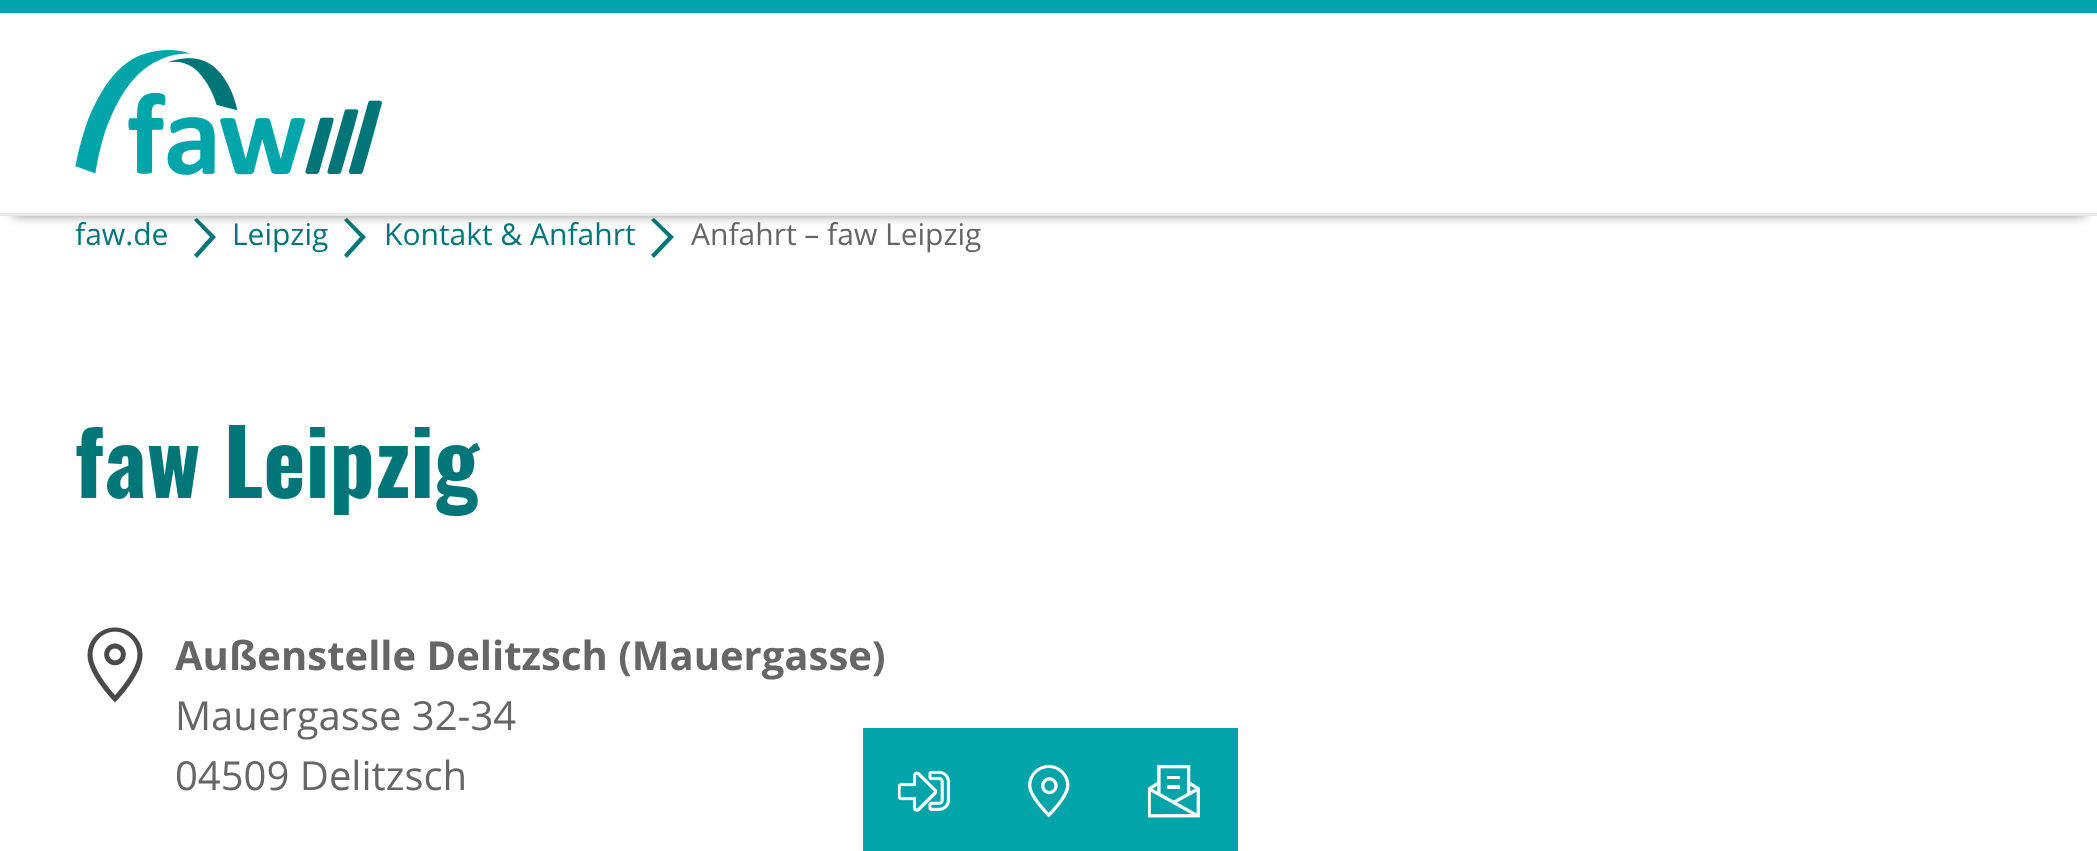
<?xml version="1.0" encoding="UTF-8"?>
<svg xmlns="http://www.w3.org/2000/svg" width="2097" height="851">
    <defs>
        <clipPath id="clip1"><rect x="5" y="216" width="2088" height="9"/></clipPath>
        <filter id="blur1" x="-50%" y="-200%" width="200%" height="500%"><feGaussianBlur stdDeviation="6"/></filter>
    </defs>
    <rect width="100%" height="100%" fill="#FFFFFF"/>
    <path d="M 197 258 L 194 255 L 210 237 L 194 220 L 197 218 L 216 237 Z" fill="#017577"/>
    <path d="M 347 258 L 344 255 L 360 237 L 344 220 L 347 218 L 366 237 Z" fill="#017577"/>
    <path d="M 654 258 L 651 255 L 668 237 L 651 220 L 654 218 L 674 237 Z" fill="#017577"/>
    <g clip-path="url(#clip1)">
        <rect x="13" y="25" width="2072" height="190" fill="#000000" fill-opacity="0.5" filter="url(#blur1)"/>
    </g>
    <rect x="0" y="0" width="2097" height="13" fill="#00A4A9"/>
    <rect x="0" y="213" width="2097" height="3" fill="#E9E9E9"/>
    <image x="75" y="50" width="308" height="125" href="img_01.png"/>
    <text x="75" y="245" font-family="Open Sans" font-size="30" fill="#017577">faw.de</text>
    <text x="232" y="245" font-family="Open Sans" font-size="30" fill="#017577">Leipzig</text>
    <text x="384" y="245" font-family="Open Sans" font-size="30" fill="#017577">Kontakt &amp; Anfahrt</text>
    <text x="691" y="245" font-family="Open Sans" font-size="30" fill="#666666">Anfahrt – faw Leipzig</text>
    <text x="75" y="498" font-family="Oswald" font-size="90" font-weight="700" fill="#017577">faw Leipzig</text>
    <image x="87" y="627" width="56" height="76" href="img_02.png"/>
    <text x="175" y="670" font-family="Open Sans" font-size="40" font-weight="700" fill="#666666">Außenstelle Delitzsch (Mauergasse)</text>
    <text font-family="Open Sans" font-size="40" fill="#666666">
        <tspan x="175" y="730">Mauergasse 32-34</tspan>
        <tspan x="175" y="790">04509 Delitzsch</tspan>
    </text>
    <rect x="863" y="728" width="375" height="123" fill="#00A4A9"/>
    <image x="898" y="770" width="52" height="42" href="img_03.png"/>
    <image x="1028" y="765" width="42" height="53" href="img_04.png"/>
    <image x="1148" y="765" width="52" height="53" href="img_05.png"/>
</svg>
